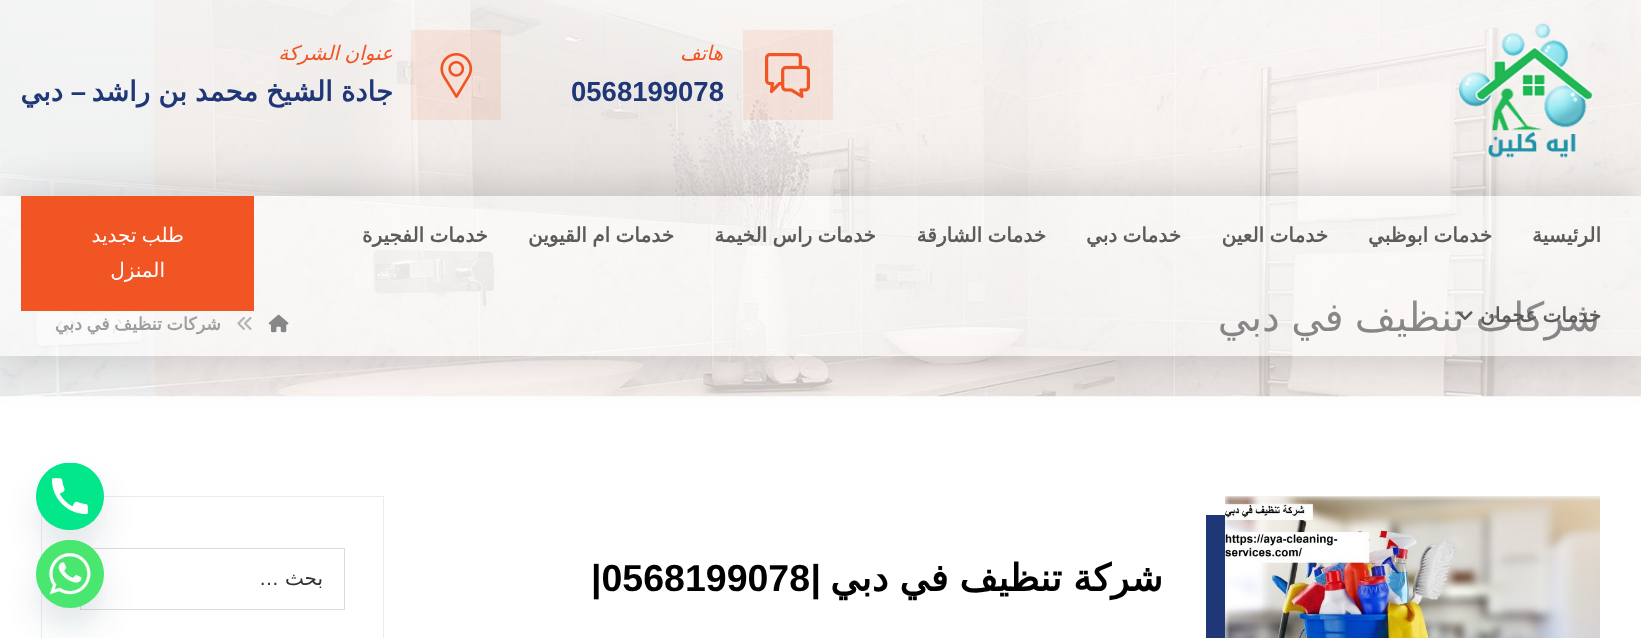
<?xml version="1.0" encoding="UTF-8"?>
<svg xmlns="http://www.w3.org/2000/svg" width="1641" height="638">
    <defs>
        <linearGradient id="g1" gradientUnits="userSpaceOnUse" x1="821" y1="356" x2="821" y2="-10"><stop offset="0" stop-color="#FFFFFF" stop-opacity="0.01"/><stop offset="1" stop-color="#FFFFFF" stop-opacity="0.54"/></linearGradient>
        <clipPath id="clip1"><path d="M 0 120 H 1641 V 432 H 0 Z M 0 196 H 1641 V 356 H 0 Z" clip-rule="evenodd"/></clipPath>
        <filter id="blur1" x="-50%" y="-200%" width="200%" height="500%"><feGaussianBlur stdDeviation="25"/></filter>
        <filter id="blur2" x="-50%" y="-200%" width="200%" height="500%"><feGaussianBlur stdDeviation="15"/></filter>
    </defs>
    <rect width="100%" height="100%" fill="#FFFFFF"/>
    <image x="0" y="0" width="1641" height="397" href="img_05.png"/>
    <text x="1600" y="331" word-spacing="-1.5" font-family="DejaVu Sans" font-size="40" direction="rtl" fill="#000000">شركات تنظيف في دبي</text>
    <image x="268" y="314" width="21" height="19" href="img_06.png"/>
    <image x="237" y="316" width="15" height="14" href="img_07.png"/>
    <text x="221" y="330" word-spacing="-1" font-family="DejaVu Sans" font-size="17.5" font-weight="700" direction="rtl" fill="#303030">شركات تنظيف في دبي</text>
    <rect x="0" y="0" width="1641" height="341" fill="url(#g1)"/>
    <image x="1459" y="23" width="134" height="135" href="img_01.png"/>
    <rect x="743" y="30" width="90" height="90" fill="#F15524" fill-opacity="0.1"/>
    <image x="765" y="53" width="45" height="45" href="img_02.png"/>
    <text x="723" y="60" font-family="DejaVu Sans" font-size="20" font-style="italic" direction="rtl" fill="#F15524">هاتف</text>
    <text x="571" y="101" font-family="Liberation Sans" font-size="27.5" font-weight="700" fill="#1F3777">0568199078</text>
    <rect x="411" y="30" width="90" height="90" fill="#F15524" fill-opacity="0.1"/>
    <image x="440" y="53" width="33" height="45" href="img_03.png"/>
    <text x="393" y="60" word-spacing="-1" font-family="DejaVu Sans" font-size="20" font-style="italic" direction="rtl" fill="#F15524">عنوان الشركة</text>
    <text x="393" y="101" word-spacing="-0.5" font-family="DejaVu Sans" font-size="27.5" font-weight="700" direction="rtl" fill="#1F3777">جادة الشيخ محمد بن راشد</text>
    <text x="86" y="101" font-family="Liberation Sans" font-size="27.5" font-weight="700" direction="rtl" fill="#1F3777">–</text>
    <text x="63" y="101" font-family="DejaVu Sans" font-size="27.5" font-weight="700" direction="rtl" fill="#1F3777">دبي</text>
    <g clip-path="url(#clip1)">
        <rect x="0" y="196" width="1641" height="160" fill="#000000" fill-opacity="0.2" filter="url(#blur1)"/>
    </g>
    <rect x="0" y="196" width="1641" height="160" fill="#FFFFFF" fill-opacity="0.5"/>
    <text x="1601" y="242" font-family="DejaVu Sans" font-size="20" font-weight="700" direction="rtl" fill="#5B5B5B">الرئيسية</text>
    <text x="1492" y="242" word-spacing="-1" font-family="DejaVu Sans" font-size="20" font-weight="700" direction="rtl" fill="#5B5B5B">خدمات ابوظبي</text>
    <text x="1328" y="242" word-spacing="-1" font-family="DejaVu Sans" font-size="20" font-weight="700" direction="rtl" fill="#5B5B5B">خدمات العين</text>
    <text x="1181" y="242" word-spacing="-1" font-family="DejaVu Sans" font-size="20" font-weight="700" direction="rtl" fill="#5B5B5B">خدمات دبي</text>
    <text x="1046" y="242" word-spacing="-1" font-family="DejaVu Sans" font-size="20" font-weight="700" direction="rtl" fill="#5B5B5B">خدمات الشارقة</text>
    <text x="876" y="242" word-spacing="-1" font-family="DejaVu Sans" font-size="20" font-weight="700" direction="rtl" fill="#5B5B5B">خدمات راس الخيمة</text>
    <text x="674" y="242" word-spacing="-1" font-family="DejaVu Sans" font-size="20" font-weight="700" direction="rtl" fill="#5B5B5B">خدمات ام القيوين</text>
    <text x="488" y="242" word-spacing="-1" font-family="DejaVu Sans" font-size="20" font-weight="700" direction="rtl" fill="#5B5B5B">خدمات الفجيرة</text>
    <text x="1601" y="322" word-spacing="-1" font-family="DejaVu Sans" font-size="20" font-weight="700" direction="rtl" fill="#5B5B5B">خدمات عجمان</text>
    <image x="1457" y="311" width="16" height="9" href="img_04.png"/>
    <rect x="21" y="196" width="233" height="115" fill="#F15524"/>
    <text x="184" y="242" word-spacing="-1" font-family="DejaVu Sans" font-size="20" direction="rtl" fill="#FFFFFF">طلب تجديد</text>
    <text x="165" y="277" font-family="DejaVu Sans" font-size="20" direction="rtl" fill="#FFFFFF">المنزل</text>
    <path d="M 1206 515 V 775 H 1581 V 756 H 1225 V 515 Z" fill="#1F3777"/>
    <rect x="1225" y="496" width="375" height="1" fill="#EDEDED"/>
    <image x="1225" y="496" width="375" height="142" href="img_08.png"/>
    <text x="1163" y="591" word-spacing="-1" font-family="DejaVu Sans" font-size="37.5" font-weight="700" direction="rtl" fill="#000000">شركة تنظيف في دبي</text>
    <text x="821" y="591" font-family="Liberation Sans" font-size="37.5" font-weight="700" direction="rtl" fill="#000000">|</text>
    <text x="591" y="591" font-family="Liberation Sans" font-size="37.5" font-weight="700" fill="#000000">|0568199078</text>
    <rect x="41.5" y="496.5" width="342" height="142" fill="none" stroke="#E9EBF1"/>
    <rect x="80.5" y="548.5" width="264" height="61" fill="none" stroke="#DCDCDC"/>
    <text x="323" y="585" font-family="DejaVu Sans" font-size="20" direction="rtl" fill="#303030">بحث</text>
    <text x="279" y="585" font-family="Liberation Sans" font-size="20" direction="rtl" fill="#303030">…</text>
    <rect x="36" y="483" width="68" height="67" rx="33.5" fill="#49687E" fill-opacity="0.16" filter="url(#blur2)"/>
    <rect x="36" y="463" width="68" height="67" rx="33.5" fill="#03E78B"/>
    <image x="36" y="463" width="68" height="67" href="img_09.png"/>
    <rect x="36" y="560" width="68" height="68" rx="34" fill="#49687E" fill-opacity="0.16" filter="url(#blur2)"/>
    <circle cx="70" cy="574" r="34" fill="#49E670"/>
    <image x="36" y="540" width="68" height="55" href="img_10.png"/>
</svg>
